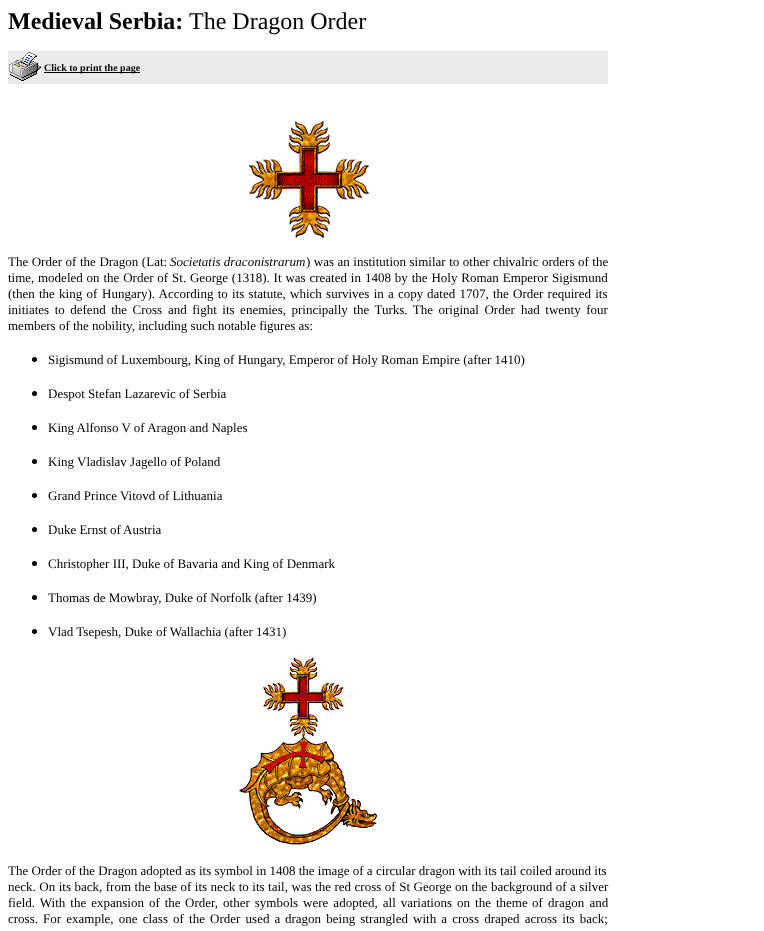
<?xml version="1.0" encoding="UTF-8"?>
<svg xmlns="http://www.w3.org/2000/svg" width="764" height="931">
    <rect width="100%" height="100%" fill="#FFFFFF"/>
    <text x="8" y="29" font-family="Liberation Serif" font-size="24" font-weight="700" fill="#000000">Medieval Serbia:</text>
    <text x="189" y="29" font-family="Liberation Serif" font-size="24" fill="#000000">The Dragon Order</text>
    <rect x="8" y="51" width="600" height="33" fill="#EBEBEB"/>
    <image x="9" y="52" width="32" height="29" href="img_01.png"/>
    <rect x="44" y="72" width="96" height="1" fill="#000000"/>
    <text x="44" y="71" font-family="Liberation Serif" font-size="10" font-weight="700" fill="#000000">Click to print the page</text>
    <image x="249" y="121" width="120" height="117" href="img_02.png"/>
    <text x="8" y="266" word-spacing="0.25" font-family="Liberation Serif" font-size="13" fill="#000000">The Order of</text>
    <text x="80" y="266" word-spacing="0.25" font-family="Liberation Serif" font-size="13" fill="#000000">the Dragon (Lat:</text>
    <text x="170" y="266" font-family="Liberation Serif" font-size="13" font-style="italic" fill="#000000">Societatis draconistrarum</text>
    <text x="306" y="266" word-spacing="0.25" font-family="Liberation Serif" font-size="13" fill="#000000">) was an institution similar to other chivalric orders of the</text>
    <text x="8" y="282" font-family="Liberation Serif" font-size="13" fill="#000000">time,</text>
    <text x="38" y="282" word-spacing="0.6" font-family="Liberation Serif" font-size="13" fill="#000000">modeled on the Order of St. George (1318). It was created in</text>
    <text x="365" y="282" word-spacing="0.6" font-family="Liberation Serif" font-size="13" fill="#000000">1408 by the Holy Roman Emperor Sigismund</text>
    <text x="8" y="298" word-spacing="1" font-family="Liberation Serif" font-size="13" fill="#000000">(then the king of</text>
    <text x="102" y="298" word-spacing="1" font-family="Liberation Serif" font-size="13" fill="#000000">Hungary). According to its statute, which survives in a copy</text>
    <text x="427" y="298" word-spacing="1" font-family="Liberation Serif" font-size="13" fill="#000000">dated 1707, the Order required its</text>
    <text x="8" y="314" word-spacing="2.25" font-family="Liberation Serif" font-size="13" fill="#000000">initiates to defend the Cross</text>
    <text x="168" y="314" word-spacing="2.25" font-family="Liberation Serif" font-size="13" fill="#000000">and fight its enemies, principally the Turks. The original Order</text>
    <text x="521" y="314" word-spacing="2.25" font-family="Liberation Serif" font-size="13" fill="#000000">had twenty four</text>
    <text x="8" y="330" font-family="Liberation Serif" font-size="13" fill="#000000">members of the nobility, including such notable figures as:</text>
    <circle cx="34.5" cy="359.5" r="2.5" fill="#000000"/>
    <text x="48" y="364" font-family="Liberation Serif" font-size="13" fill="#000000">Sigismund of Luxembourg, King of Hungary, Emperor of Holy Roman Empire (after 1410)</text>
    <circle cx="34.5" cy="393.5" r="2.5" fill="#000000"/>
    <text x="48" y="398" font-family="Liberation Serif" font-size="13" fill="#000000">Despot Stefan Lazarevic of Serbia</text>
    <circle cx="34.5" cy="427.5" r="2.5" fill="#000000"/>
    <text x="48" y="432" font-family="Liberation Serif" font-size="13" fill="#000000">King Alfonso V of Aragon and Naples</text>
    <circle cx="34.5" cy="461.5" r="2.5" fill="#000000"/>
    <text x="48" y="466" font-family="Liberation Serif" font-size="13" fill="#000000">King Vladislav Jagello of Poland</text>
    <circle cx="34.5" cy="495.5" r="2.5" fill="#000000"/>
    <text x="48" y="500" font-family="Liberation Serif" font-size="13" fill="#000000">Grand Prince Vitovd of Lithuania</text>
    <circle cx="34.5" cy="529.5" r="2.5" fill="#000000"/>
    <text x="48" y="534" font-family="Liberation Serif" font-size="13" fill="#000000">Duke Ernst of</text>
    <text x="123" y="534" font-family="Liberation Serif" font-size="13" fill="#000000">Austria</text>
    <circle cx="34.5" cy="563.5" r="2.5" fill="#000000"/>
    <text x="48" y="568" font-family="Liberation Serif" font-size="13" fill="#000000">Christopher III, Duke of Bavaria and King of Denmark</text>
    <circle cx="34.5" cy="597.5" r="2.5" fill="#000000"/>
    <text x="48" y="602" font-family="Liberation Serif" font-size="13" fill="#000000">Thomas de Mowbray, Duke of Norfolk (after 1439)</text>
    <circle cx="34.5" cy="631.5" r="2.5" fill="#000000"/>
    <text x="48" y="636" font-family="Liberation Serif" font-size="13" fill="#000000">Vlad Tsepesh, Duke of Wallachia (after 1431)</text>
    <image x="239" y="657" width="138" height="188" href="img_03.png"/>
    <text font-family="Liberation Serif" font-size="13" fill="#000000">
        <tspan x="8" y="875">The Order of the Dragon adopted as its symbol in 1408 the image of a circular dragon with its tail coiled around its</tspan>
        <tspan x="8" y="891" word-spacing="0.25">neck. On its back, from the base of its neck to its tail, was the red cross of St George on the background of a silver</tspan>
        <tspan x="8" y="907" word-spacing="1.75">field. With the expansion of the</tspan>
    </text>
    <text x="185" y="907" word-spacing="1.75" font-family="Liberation Serif" font-size="13" fill="#000000">Order, other symbols were adopted, all variations on the theme</text>
    <text x="532" y="907" word-spacing="2" font-family="Liberation Serif" font-size="13" fill="#000000">of dragon and</text>
    <text x="8" y="923" word-spacing="1.9" font-family="Liberation Serif" font-size="13" fill="#000000">cross. For example, one class of the Order used a</text>
    <text x="285" y="923" word-spacing="1.9" font-family="Liberation Serif" font-size="13" fill="#000000">dragon being strangled with a cross draped across its back;</text>
</svg>
